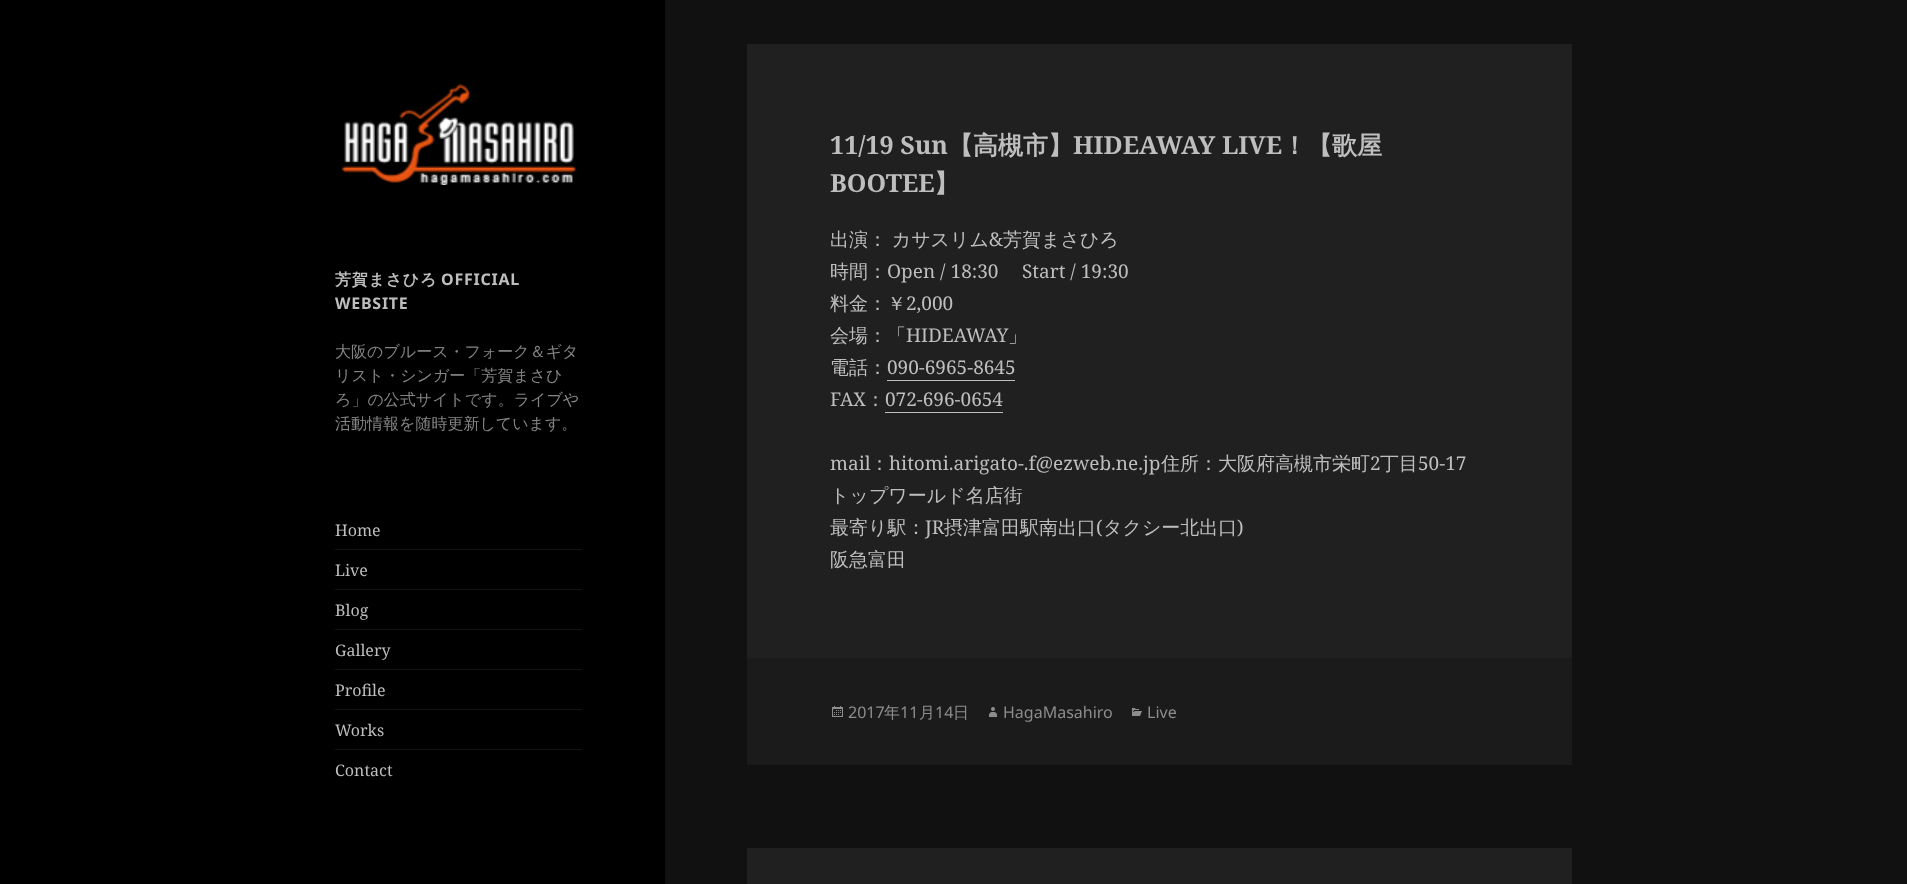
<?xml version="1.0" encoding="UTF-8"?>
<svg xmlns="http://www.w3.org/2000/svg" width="1907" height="884">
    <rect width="100%" height="100%" fill="#111111"/>
    <rect x="0" y="0" width="665" height="884" fill="#000000"/>
    <image x="341" y="83" width="236" height="102" href="img_01.png"/>
    <text x="335" y="285" font-family="WenQuanYi Zen Hei" font-size="16" font-weight="700" letter-spacing="0.75" fill="#BEBEBE">芳賀まさひろ</text>
    <text x="441" y="285" font-family="Noto Sans" font-size="16" font-weight="700" letter-spacing="0.75" fill="#BEBEBE">OFFICIAL</text>
    <text x="335" y="309" font-family="Noto Sans" font-size="16" font-weight="700" letter-spacing="0.75" fill="#BEBEBE">WEBSITE</text>
    <text font-family="WenQuanYi Zen Hei" font-size="16" font-weight="500" fill="#858585">
        <tspan x="335" y="357">大阪のブルース・フォーク＆ギタ</tspan>
        <tspan x="335" y="381">リスト・シンガー「芳賀まさひ</tspan>
        <tspan x="335" y="405">ろ」の公式サイトです。ライブや</tspan>
        <tspan x="335" y="429">活動情報を随時更新しています。</tspan>
    </text>
    <text x="335" y="536" font-family="Noto Serif" font-size="16" fill="#BEBEBE">Home</text>
    <rect x="335" y="549" width="247" height="1" fill="#131313"/>
    <text x="335" y="576" font-family="Noto Serif" font-size="16" fill="#BEBEBE">Live</text>
    <rect x="335" y="589" width="247" height="1" fill="#131313"/>
    <text x="335" y="616" font-family="Noto Serif" font-size="16" fill="#BEBEBE">Blog</text>
    <rect x="335" y="629" width="247" height="1" fill="#131313"/>
    <text x="335" y="656" font-family="Noto Serif" font-size="16" fill="#BEBEBE">Gallery</text>
    <rect x="335" y="669" width="247" height="1" fill="#131313"/>
    <text x="335" y="696" font-family="Noto Serif" font-size="16" fill="#BEBEBE">Profile</text>
    <rect x="335" y="709" width="247" height="1" fill="#131313"/>
    <text x="335" y="736" font-family="Noto Serif" font-size="16" fill="#BEBEBE">Works</text>
    <rect x="335" y="749" width="247" height="1" fill="#131313"/>
    <text x="335" y="776" font-family="Noto Serif" font-size="16" fill="#BEBEBE">Contact</text>
    <rect x="747" y="44" width="825" height="614" fill="#202020"/>
    <text x="830" y="154" font-family="Noto Serif" font-size="25" font-weight="700" fill="#BEBEBE">11/19 Sun</text>
    <text x="948" y="154" font-family="WenQuanYi Zen Hei" font-size="25" font-weight="700" fill="#BEBEBE">【高槻市】</text>
    <text x="1073" y="154" font-family="Noto Serif" font-size="25" font-weight="700" fill="#BEBEBE">HIDEAWAY LIVE</text>
    <text x="1282" y="154" font-family="WenQuanYi Zen Hei" font-size="25" font-weight="700" fill="#BEBEBE">！【歌屋</text>
    <text x="830" y="192" font-family="Noto Serif" font-size="25" font-weight="700" fill="#BEBEBE">BOOTEE</text>
    <text x="934" y="192" font-family="WenQuanYi Zen Hei" font-size="25" font-weight="700" fill="#BEBEBE">】</text>
    <text x="830" y="246" word-spacing="-1" font-family="WenQuanYi Zen Hei" font-size="19" font-weight="500" fill="#BEBEBE">出演： カサスリム</text>
    <text x="989" y="246" font-family="Noto Serif" font-size="19" fill="#BEBEBE">&amp;</text>
    <text x="1003" y="246" font-family="WenQuanYi Zen Hei" font-size="19" font-weight="500" fill="#BEBEBE">芳賀まさひろ</text>
    <text x="830" y="278" font-family="WenQuanYi Zen Hei" font-size="19" font-weight="500" fill="#BEBEBE">時間：</text>
    <text x="887" y="278" font-family="Noto Serif" font-size="19" fill="#BEBEBE">Open / 18:30</text>
    <text x="1022" y="278" font-family="Noto Serif" font-size="19" fill="#BEBEBE">Start / 19:30</text>
    <text x="830" y="310" font-family="WenQuanYi Zen Hei" font-size="19" font-weight="500" fill="#BEBEBE">料金：￥</text>
    <text x="906" y="310" font-family="Noto Serif" font-size="19" fill="#BEBEBE">2,000</text>
    <text x="830" y="342" font-family="WenQuanYi Zen Hei" font-size="19" font-weight="500" fill="#BEBEBE">会場：「</text>
    <text x="906" y="342" font-family="Noto Serif" font-size="19" fill="#BEBEBE">HIDEAWAY</text>
    <text x="1008" y="342" font-family="WenQuanYi Zen Hei" font-size="19" font-weight="500" fill="#BEBEBE">」</text>
    <text x="830" y="374" font-family="WenQuanYi Zen Hei" font-size="19" font-weight="500" fill="#BEBEBE">電話：</text>
    <text x="887" y="374" font-family="Noto Serif" font-size="19" fill="#BEBEBE">090-6965-8645</text>
    <rect x="887" y="380" width="128" height="1" fill="#BEBEBE"/>
    <text x="830" y="406" font-family="Noto Serif" font-size="19" fill="#BEBEBE">FAX</text>
    <text x="866" y="406" font-family="WenQuanYi Zen Hei" font-size="19" font-weight="500" fill="#BEBEBE">：</text>
    <text x="885" y="406" font-family="Noto Serif" font-size="19" fill="#BEBEBE">072-696-0654</text>
    <rect x="885" y="412" width="118" height="1" fill="#BEBEBE"/>
    <text x="830" y="470" font-family="Noto Serif" font-size="19" fill="#BEBEBE">mail</text>
    <text x="870" y="470" font-family="WenQuanYi Zen Hei" font-size="19" font-weight="500" fill="#BEBEBE">：</text>
    <text x="889" y="470" font-family="Noto Serif" font-size="19" fill="#BEBEBE">hitomi.arigato-.f@ezweb.ne.jp</text>
    <text x="1161" y="470" font-family="WenQuanYi Zen Hei" font-size="19" font-weight="500" fill="#BEBEBE">住所：大阪府高槻市栄町</text>
    <text x="1370" y="470" font-family="Noto Serif" font-size="19" fill="#BEBEBE">2</text>
    <text x="1380" y="470" font-family="WenQuanYi Zen Hei" font-size="19" font-weight="500" fill="#BEBEBE">丁目</text>
    <text x="1418" y="470" font-family="Noto Serif" font-size="19" fill="#BEBEBE">50-17</text>
    <text font-family="WenQuanYi Zen Hei" font-size="19" font-weight="500" fill="#BEBEBE">
        <tspan x="830" y="502">トップワールド名店街</tspan>
        <tspan x="830" y="534">最寄り駅：</tspan>
    </text>
    <text x="925" y="534" font-family="Noto Serif" font-size="19" fill="#BEBEBE">JR</text>
    <text x="944" y="534" font-family="WenQuanYi Zen Hei" font-size="19" font-weight="500" fill="#BEBEBE">摂津富田駅南出口</text>
    <text x="1096" y="534" font-family="Noto Serif" font-size="19" fill="#BEBEBE">(</text>
    <text x="1103" y="534" font-family="WenQuanYi Zen Hei" font-size="19" font-weight="500" fill="#BEBEBE">タクシー北出口</text>
    <text x="1237" y="534" font-family="Noto Serif" font-size="19" fill="#BEBEBE">)</text>
    <text x="830" y="566" font-family="WenQuanYi Zen Hei" font-size="19" font-weight="500" fill="#BEBEBE">阪急富田</text>
    <rect x="747" y="658" width="825" height="107" fill="#1B1B1B"/>
    <image x="832" y="706" width="11" height="11" href="img_02.png"/>
    <text x="848" y="718" font-family="Noto Sans" font-size="16" fill="#8D8D8D">2017</text>
    <text x="884" y="718" font-family="WenQuanYi Zen Hei" font-size="16" font-weight="500" fill="#8D8D8D">年</text>
    <text x="900" y="718" font-family="Noto Sans" font-size="16" fill="#8D8D8D">11</text>
    <text x="919" y="718" font-family="WenQuanYi Zen Hei" font-size="16" font-weight="500" fill="#8D8D8D">月</text>
    <text x="935" y="718" font-family="Noto Sans" font-size="16" fill="#8D8D8D">14</text>
    <text x="953" y="718" font-family="WenQuanYi Zen Hei" font-size="16" font-weight="500" fill="#8D8D8D">日</text>
    <image x="989" y="707" width="8" height="10" href="img_03.png"/>
    <text x="1003" y="718" font-family="Noto Sans" font-size="16" fill="#8D8D8D">HagaMasahiro</text>
    <image x="1132" y="708" width="10" height="8" href="img_04.png"/>
    <text x="1147" y="718" font-family="Noto Sans" font-size="16" fill="#8D8D8D">Live</text>
    <rect x="747" y="848" width="825" height="36" fill="#202020"/>
</svg>
